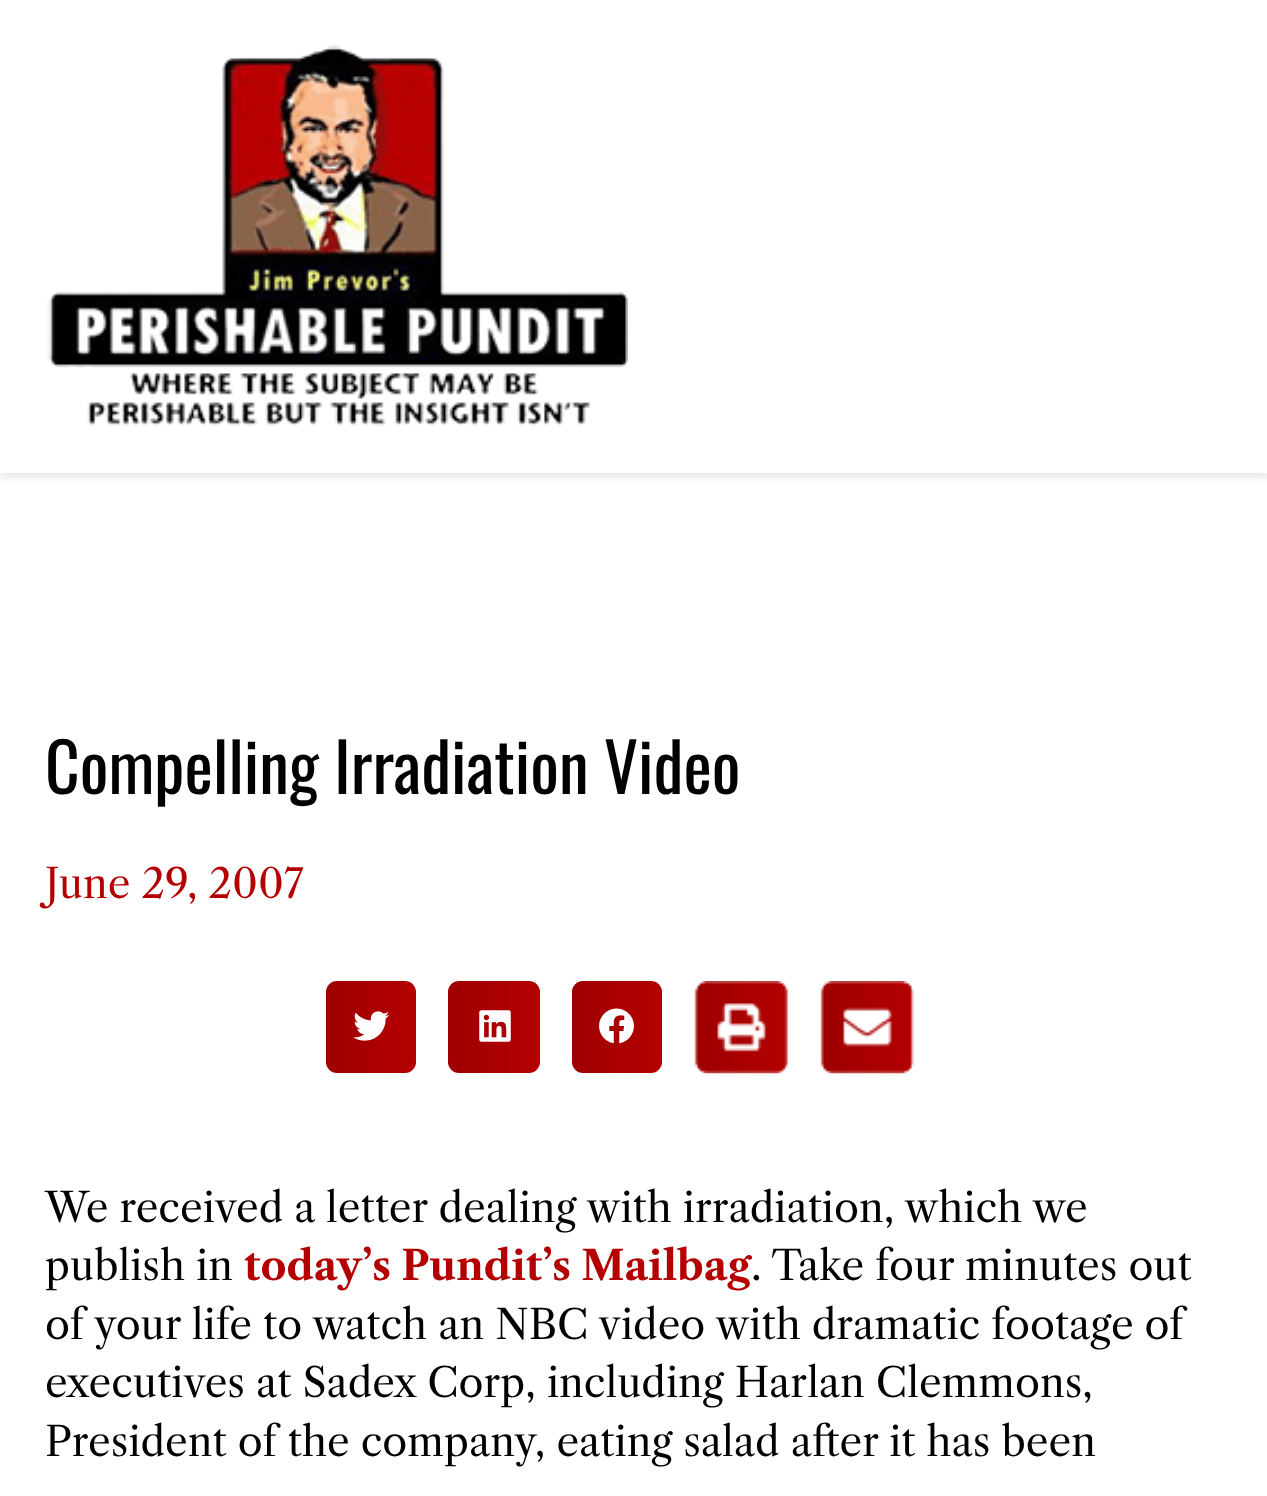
<?xml version="1.0" encoding="UTF-8"?>
<svg xmlns="http://www.w3.org/2000/svg" width="1267" height="1496">
    <defs>
        <filter id="blur1" x="-50%" y="-200%" width="200%" height="500%"><feGaussianBlur stdDeviation="4.5"/></filter>
        <linearGradient id="g1" gradientUnits="userSpaceOnUse" x1="326" y1="1027" x2="416" y2="1027"><stop offset="0" stop-color="#000000" stop-opacity="0.12"/><stop offset="1" stop-color="#000000" stop-opacity="0"/></linearGradient>
        <linearGradient id="g2" gradientUnits="userSpaceOnUse" x1="448" y1="1027" x2="540" y2="1027"><stop offset="0" stop-color="#000000" stop-opacity="0.12"/><stop offset="1" stop-color="#000000" stop-opacity="0"/></linearGradient>
        <linearGradient id="g3" gradientUnits="userSpaceOnUse" x1="572" y1="1027" x2="662" y2="1027"><stop offset="0" stop-color="#000000" stop-opacity="0.12"/><stop offset="1" stop-color="#000000" stop-opacity="0"/></linearGradient>
    </defs>
    <rect width="100%" height="100%" fill="#FFFFFF"/>
    <rect x="0" y="5" width="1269" height="472" fill="#000000" fill-opacity="0.1" filter="url(#blur1)"/>
    <rect x="0" y="0" width="1267" height="473" fill="#FFFFFF"/>
    <image x="47" y="45" width="581" height="381" href="img_01.png"/>
    <text x="45" y="794" font-family="Oswald" font-size="67.5" fill="#000000">Compelling Irradiation Video</text>
    <text x="45" y="898" font-family="Libre Caslon Text" font-size="40.5" fill="#B40000">June 29, 2007</text>
    <rect x="326" y="981" width="90" height="92" rx="11" fill="#B40000"/>
    <rect x="326" y="981" width="90" height="92" rx="11" fill="url(#g1)"/>
    <image x="353" y="1011" width="36" height="30" href="img_02.png"/>
    <rect x="448" y="981" width="92" height="92" rx="11" fill="#B40000"/>
    <rect x="448" y="981" width="92" height="92" rx="11" fill="url(#g2)"/>
    <image x="479" y="1010" width="32" height="32" href="img_03.png"/>
    <rect x="572" y="981" width="90" height="92" rx="11" fill="#B40000"/>
    <rect x="572" y="981" width="90" height="92" rx="11" fill="url(#g3)"/>
    <image x="599" y="1008" width="35" height="36" href="img_04.png"/>
    <image x="694" y="981" width="221" height="93" href="img_05.png"/>
    <text font-family="Libre Caslon Text" font-size="40.5" fill="#000000">
        <tspan x="45" y="1222">We received a letter dealing with irradiation, which we</tspan>
        <tspan x="45" y="1280">publish in</tspan>
    </text>
    <text x="244" y="1280" font-family="Libre Caslon Text" font-size="40.5" font-weight="700" fill="#B40000">today’s Pundit’s Mailbag</text>
    <text x="751" y="1280" font-family="Libre Caslon Text" font-size="40.5" fill="#000000">. Take four minutes out</text>
    <text font-family="Libre Caslon Text" font-size="40.5" fill="#000000">
        <tspan x="45" y="1339">of your life to watch an NBC video with dramatic footage of</tspan>
        <tspan x="45" y="1397">executives at Sadex Corp, including Harlan Clemmons,</tspan>
        <tspan x="45" y="1456">President of the company, eating salad after it has been</tspan>
    </text>
</svg>
